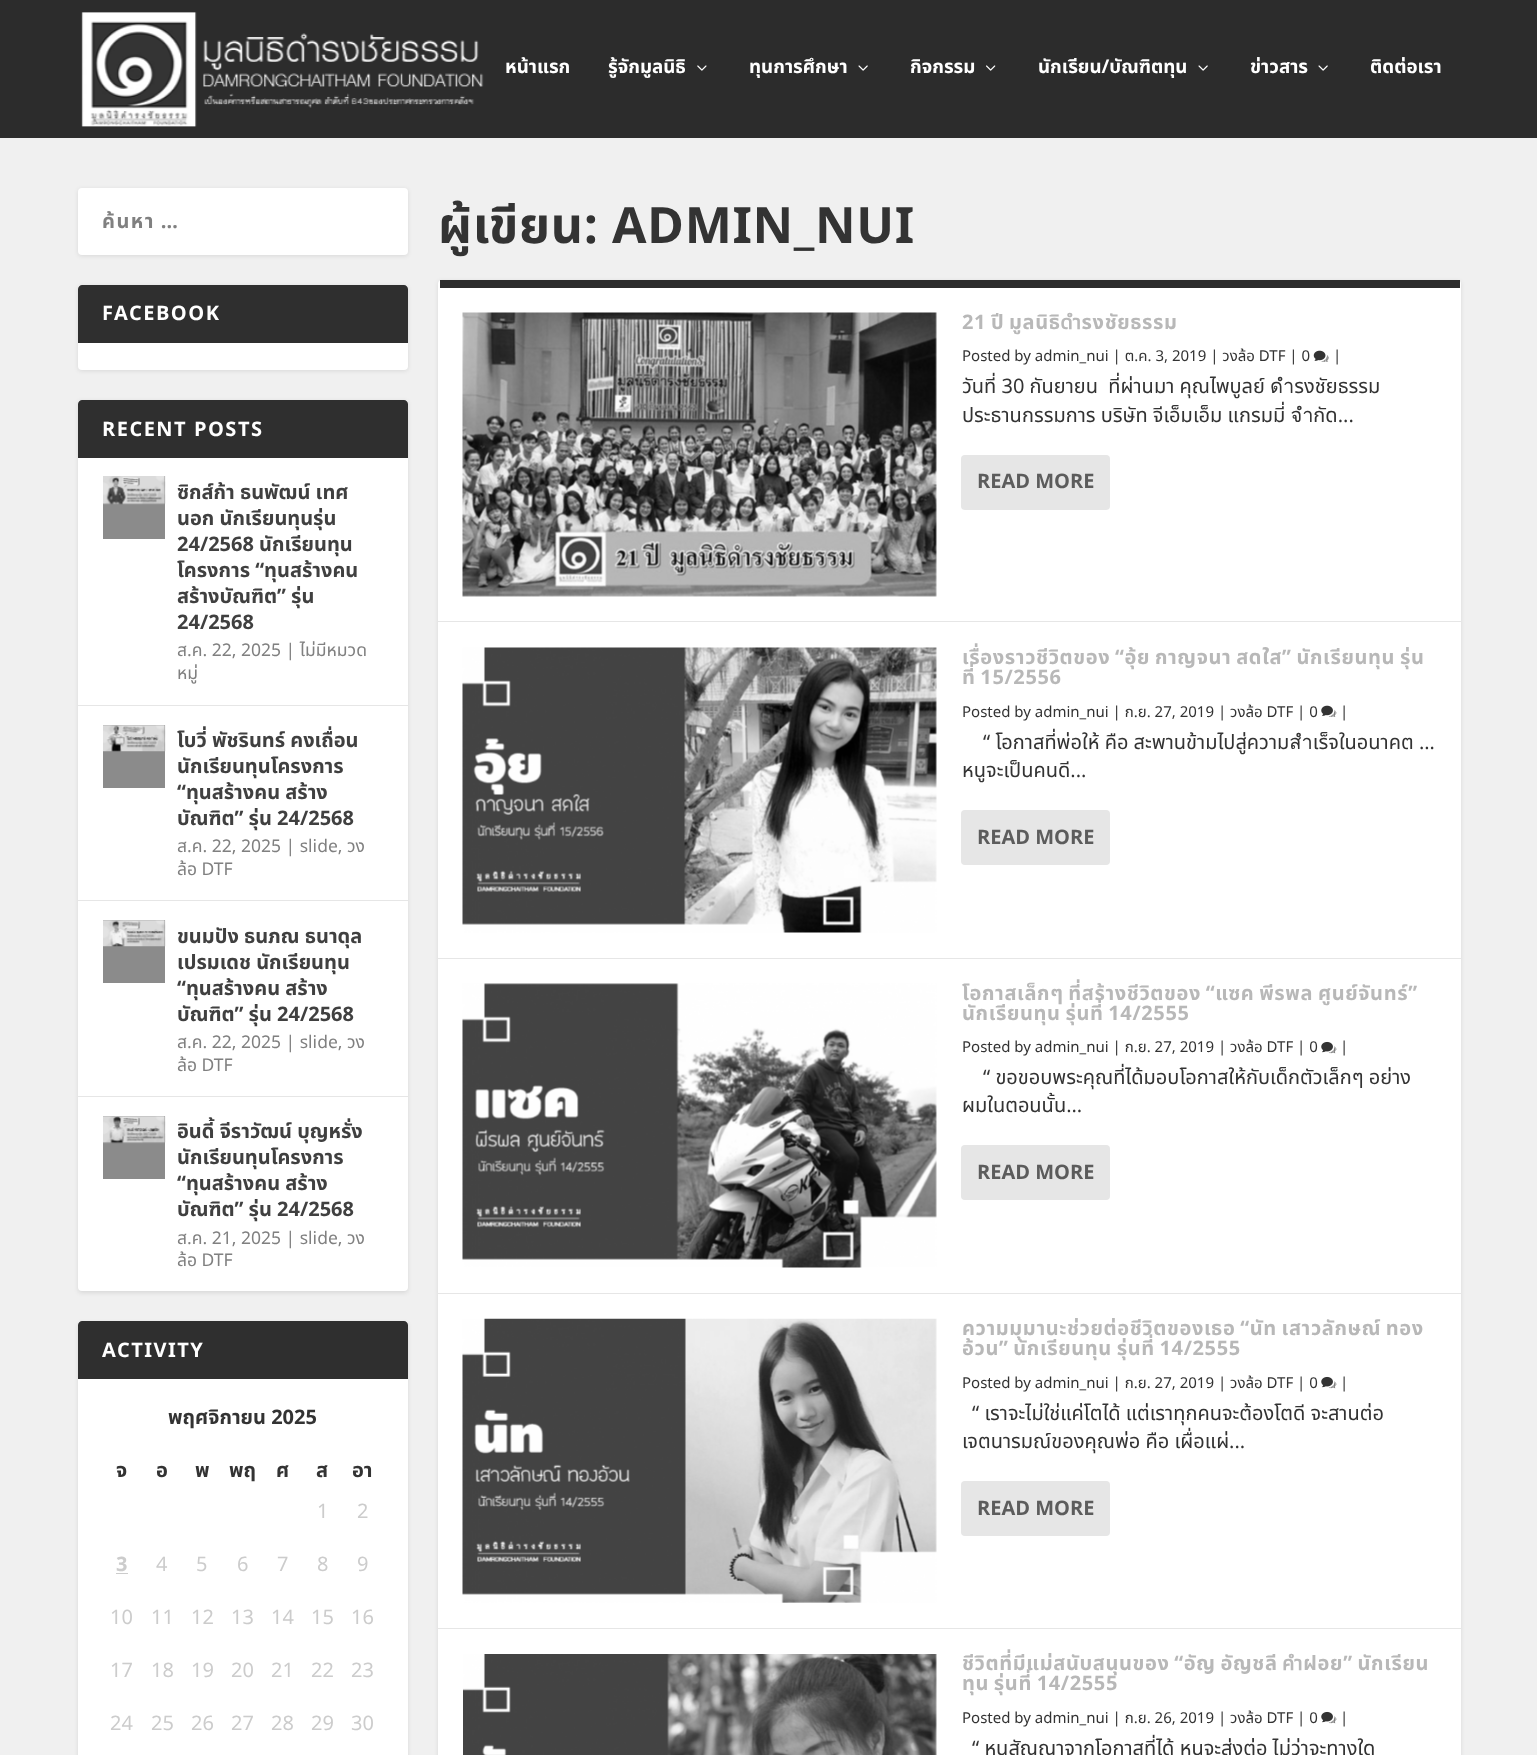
<?xml version="1.0" encoding="UTF-8"?>
<svg xmlns="http://www.w3.org/2000/svg" width="1537" height="1755">
    <defs>
        <filter id="blur1" x="-50%" y="-200%" width="200%" height="500%"><feGaussianBlur stdDeviation="2"/></filter>
        <clipPath id="clip1"><rect x="103" y="206" width="280" height="30"/></clipPath>
        <clipPath id="clip2"><rect x="423" y="188" width="1038" height="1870"/></clipPath>
    </defs>
    <rect width="100%" height="100%" fill="#F0F0F0"/>
    <rect x="0" y="0" width="1537" height="138" fill="#2C2C2C"/>
    <image x="81" y="12" width="403" height="115" href="img_01.png"/>
    <text x="505" y="73" font-family="Noto Sans Thai" font-size="18.75" font-weight="700" fill="#FFFFFF">หน้าแรก</text>
    <text x="608" y="73" font-family="Noto Sans Thai" font-size="18.75" font-weight="700" fill="#FFFFFF">รู้จักมูลนิธิ</text>
    <image x="697" y="65" width="10" height="6" href="img_02.png"/>
    <text x="749" y="73" font-family="Noto Sans Thai" font-size="18.75" font-weight="700" fill="#FFFFFF">ทุนการศึกษา</text>
    <image x="858" y="65" width="10" height="6" href="img_03.png"/>
    <text x="910" y="73" font-family="Noto Sans Thai" font-size="18.75" font-weight="700" fill="#FFFFFF">กิจกรรม</text>
    <image x="986" y="65" width="10" height="6" href="img_04.png"/>
    <text x="1038" y="73" font-family="Noto Sans Thai" font-size="18.75" font-weight="700" fill="#FFFFFF">นักเรียน/บัณฑิตทุน</text>
    <image x="1198" y="65" width="10" height="6" href="img_03.png"/>
    <text x="1250" y="73" font-family="Noto Sans Thai" font-size="18.75" font-weight="700" fill="#FFFFFF">ข่าวสาร</text>
    <image x="1318" y="65" width="10" height="6" href="img_03.png"/>
    <text x="1370" y="73" font-family="Noto Sans Thai" font-size="18.75" font-weight="700" fill="#FFFFFF">ติดต่อเรา</text>
    <rect x="78" y="189" width="330" height="67" rx="4" fill="#000000" fill-opacity="0.1" filter="url(#blur1)"/>
    <rect x="78" y="188" width="330" height="67" rx="4" fill="#FFFFFF"/>
    <g clip-path="url(#clip1)">
        <text x="102" y="228" word-spacing="-1" font-family="Noto Sans Thai" font-size="20" font-weight="700" letter-spacing="1.5" fill="#808080">ค้นหา …</text>
    </g>
    <rect x="78" y="286" width="330" height="85" rx="4" fill="#000000" fill-opacity="0.1" filter="url(#blur1)"/>
    <rect x="78" y="285" width="330" height="85" rx="4" fill="#FFFFFF"/>
    <path d="M 82 285 H 404 C 406 285 408 287 408 289 V 343 H 78 V 289 C 78 287 80 285 82 285 Z" fill="#2F2F2F"/>
    <text x="102" y="320" font-family="Noto Sans Thai" font-size="20" font-weight="700" letter-spacing="1.5" fill="#FFFFFF">FACEBOOK</text>
    <rect x="78" y="401" width="330" height="892" rx="4" fill="#000000" fill-opacity="0.1" filter="url(#blur1)"/>
    <rect x="78" y="400" width="330" height="891" rx="4" fill="#FFFFFF"/>
    <path d="M 82 400 H 404 C 406 400 408 402 408 404 V 458 H 78 V 404 C 78 402 80 400 82 400 Z" fill="#2F2F2F"/>
    <text x="102" y="436" font-family="Noto Sans Thai" font-size="20" font-weight="700" letter-spacing="1.5" fill="#FFFFFF">RECENT POSTS</text>
    <rect x="78" y="705" width="330" height="1" fill="#E6E6E6"/>
    <rect x="103" y="476" width="62" height="63" fill="#8B8B8B"/>
    <image x="103" y="476" width="63" height="29" href="img_05.png"/>
    <text font-family="Noto Sans Thai" font-size="20" font-weight="700" fill="#404040">
        <tspan x="177" y="499">ซิกส์ก้า ธนพัฒน์ เทศ</tspan>
        <tspan x="177" y="525">นอก นักเรียนทุนรุ่น</tspan>
        <tspan x="177" y="551">24/2568 นักเรียนทุน</tspan>
        <tspan x="177" y="577">โครงการ “ทุนสร้างคน</tspan>
        <tspan x="177" y="603">สร้างบัณฑิต” รุ่น</tspan>
        <tspan x="177" y="629">24/2568</tspan>
    </text>
    <text font-family="Noto Sans Thai" font-size="17.5" fill="#808080">
        <tspan x="177" y="656">ส.ค. 22, 2025 | ไม่มีหมวด</tspan>
        <tspan x="177" y="679">หมู่</tspan>
    </text>
    <rect x="78" y="900" width="330" height="1" fill="#E6E6E6"/>
    <rect x="103" y="725" width="62" height="63" fill="#8B8B8B"/>
    <image x="103" y="725" width="63" height="27" href="img_06.png"/>
    <text font-family="Noto Sans Thai" font-size="20" font-weight="700" fill="#404040">
        <tspan x="177" y="747">โบวี่ พัชรินทร์ คงเถื่อน</tspan>
        <tspan x="177" y="773">นักเรียนทุนโครงการ</tspan>
        <tspan x="177" y="799">“ทุนสร้างคน สร้าง</tspan>
        <tspan x="177" y="825">บัณฑิต” รุ่น 24/2568</tspan>
    </text>
    <text font-family="Noto Sans Thai" font-size="17.5" fill="#808080">
        <tspan x="177" y="852">ส.ค. 22, 2025 | slide, วง</tspan>
        <tspan x="177" y="875">ล้อ DTF</tspan>
    </text>
    <rect x="78" y="1096" width="330" height="1" fill="#E6E6E6"/>
    <rect x="103" y="920" width="62" height="63" fill="#8B8B8B"/>
    <image x="103" y="920" width="63" height="27" href="img_07.png"/>
    <text font-family="Noto Sans Thai" font-size="20" font-weight="700" fill="#404040">
        <tspan x="177" y="943">ขนมปัง ธนภณ ธนาดุล</tspan>
        <tspan x="177" y="969">เปรมเดช นักเรียนทุน</tspan>
        <tspan x="177" y="995">“ทุนสร้างคน สร้าง</tspan>
        <tspan x="177" y="1021">บัณฑิต” รุ่น 24/2568</tspan>
    </text>
    <text font-family="Noto Sans Thai" font-size="17.5" fill="#808080">
        <tspan x="177" y="1048">ส.ค. 22, 2025 | slide, วง</tspan>
        <tspan x="177" y="1071">ล้อ DTF</tspan>
    </text>
    <rect x="103" y="1116" width="62" height="63" fill="#8B8B8B"/>
    <image x="103" y="1116" width="63" height="28" href="img_08.png"/>
    <text font-family="Noto Sans Thai" font-size="20" font-weight="700" fill="#404040">
        <tspan x="177" y="1138">อินดี้ จีราวัฒน์ บุญหรั่ง</tspan>
        <tspan x="177" y="1164">นักเรียนทุนโครงการ</tspan>
        <tspan x="177" y="1190">“ทุนสร้างคน สร้าง</tspan>
        <tspan x="177" y="1216">บัณฑิต” รุ่น 24/2568</tspan>
    </text>
    <text font-family="Noto Sans Thai" font-size="17.5" fill="#808080">
        <tspan x="177" y="1244">ส.ค. 21, 2025 | slide, วง</tspan>
        <tspan x="177" y="1266">ล้อ DTF</tspan>
    </text>
    <rect x="78" y="1323" width="330" height="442" rx="4" fill="#000000" fill-opacity="0.1" filter="url(#blur1)"/>
    <rect x="78" y="1321" width="330" height="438" rx="4" fill="#FFFFFF"/>
    <path d="M 82 1321 H 404 C 406 1321 408 1323 408 1325 V 1379 H 78 V 1325 C 78 1323 80 1321 82 1321 Z" fill="#2F2F2F"/>
    <text x="102" y="1357" font-family="Noto Sans Thai" font-size="20" font-weight="700" letter-spacing="1.5" fill="#FFFFFF">ACTIVITY</text>
    <text x="168" y="1424" font-family="Noto Sans Thai" font-size="20" font-weight="700" fill="#333333">พฤศจิกายน 2025</text>
    <text x="116" y="1477" font-family="Noto Sans Thai" font-size="20" font-weight="700" fill="#333333">จ</text>
    <text x="156" y="1477" font-family="Noto Sans Thai" font-size="20" font-weight="700" fill="#333333">อ</text>
    <text x="195" y="1477" font-family="Noto Sans Thai" font-size="20" font-weight="700" fill="#333333">พ</text>
    <text x="229" y="1477" font-family="Noto Sans Thai" font-size="20" font-weight="700" fill="#333333">พฤ</text>
    <text x="276" y="1477" font-family="Noto Sans Thai" font-size="20" font-weight="700" fill="#333333">ศ</text>
    <text x="316" y="1477" font-family="Noto Sans Thai" font-size="20" font-weight="700" fill="#333333">ส</text>
    <text x="352" y="1477" font-family="Noto Sans Thai" font-size="20" font-weight="700" fill="#333333">อา</text>
    <text x="317" y="1518" font-family="Noto Sans Thai" font-size="20" fill="#CCCCCC">1</text>
    <text x="357" y="1518" font-family="Noto Sans Thai" font-size="20" fill="#CCCCCC">2</text>
    <text x="116" y="1571" font-family="Noto Sans Thai" font-size="20" font-weight="700" fill="#CCCCCC">3</text>
    <rect x="116" y="1573" width="12" height="1" fill="#CCCCCC"/>
    <text x="156" y="1571" font-family="Noto Sans Thai" font-size="20" fill="#CCCCCC">4</text>
    <text x="196" y="1571" font-family="Noto Sans Thai" font-size="20" fill="#CCCCCC">5</text>
    <text x="237" y="1571" font-family="Noto Sans Thai" font-size="20" fill="#CCCCCC">6</text>
    <text x="277" y="1571" font-family="Noto Sans Thai" font-size="20" fill="#CCCCCC">7</text>
    <text x="317" y="1571" font-family="Noto Sans Thai" font-size="20" fill="#CCCCCC">8</text>
    <text x="357" y="1571" font-family="Noto Sans Thai" font-size="20" fill="#CCCCCC">9</text>
    <text x="110" y="1624" font-family="Noto Sans Thai" font-size="20" fill="#CCCCCC">10</text>
    <text x="151" y="1624" font-family="Noto Sans Thai" font-size="20" fill="#CCCCCC">11</text>
    <text x="191" y="1624" font-family="Noto Sans Thai" font-size="20" fill="#CCCCCC">12</text>
    <text x="231" y="1624" font-family="Noto Sans Thai" font-size="20" fill="#CCCCCC">13</text>
    <text x="271" y="1624" font-family="Noto Sans Thai" font-size="20" fill="#CCCCCC">14</text>
    <text x="311" y="1624" font-family="Noto Sans Thai" font-size="20" fill="#CCCCCC">15</text>
    <text x="351" y="1624" font-family="Noto Sans Thai" font-size="20" fill="#CCCCCC">16</text>
    <text x="110" y="1677" font-family="Noto Sans Thai" font-size="20" fill="#CCCCCC">17</text>
    <text x="151" y="1677" font-family="Noto Sans Thai" font-size="20" fill="#CCCCCC">18</text>
    <text x="191" y="1677" font-family="Noto Sans Thai" font-size="20" fill="#CCCCCC">19</text>
    <text x="231" y="1677" font-family="Noto Sans Thai" font-size="20" fill="#CCCCCC">20</text>
    <text x="271" y="1677" font-family="Noto Sans Thai" font-size="20" fill="#CCCCCC">21</text>
    <text x="311" y="1677" font-family="Noto Sans Thai" font-size="20" fill="#CCCCCC">22</text>
    <text x="351" y="1677" font-family="Noto Sans Thai" font-size="20" fill="#CCCCCC">23</text>
    <text x="110" y="1730" font-family="Noto Sans Thai" font-size="20" fill="#CCCCCC">24</text>
    <text x="151" y="1730" font-family="Noto Sans Thai" font-size="20" fill="#CCCCCC">25</text>
    <text x="191" y="1730" font-family="Noto Sans Thai" font-size="20" fill="#CCCCCC">26</text>
    <text x="231" y="1730" font-family="Noto Sans Thai" font-size="20" fill="#CCCCCC">27</text>
    <text x="271" y="1730" font-family="Noto Sans Thai" font-size="20" fill="#CCCCCC">28</text>
    <text x="311" y="1730" font-family="Noto Sans Thai" font-size="20" fill="#CCCCCC">29</text>
    <text x="351" y="1730" font-family="Noto Sans Thai" font-size="20" fill="#CCCCCC">30</text>
    <g clip-path="url(#clip2)">
        <text x="438" y="243" font-family="Noto Sans Thai" font-size="50" font-weight="700" letter-spacing="0.62" fill="#333333">ผู้เขียน:</text>
    </g>
    <text x="612" y="243" font-family="Noto Sans Thai" font-size="50" font-weight="700" letter-spacing="0.62" fill="#333333">ADMIN_NUI</text>
    <rect x="438" y="281" width="1023" height="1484" rx="4" fill="#000000" fill-opacity="0.1" filter="url(#blur1)"/>
    <rect x="438" y="280" width="1023" height="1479" rx="4" fill="#FFFFFF"/>
    <rect x="440" y="280" width="1020" height="8" fill="#2C2C2C"/>
    <rect x="438" y="621" width="1023" height="1" fill="#E6E6E6"/>
    <image x="462" y="312" width="475" height="285" href="img_09.png"/>
    <text x="962" y="329" word-spacing="-1" font-family="Noto Sans Thai" font-size="20" font-weight="700" letter-spacing="0.62" fill="#B8B8B8">21 ปี มูลนิธิดำรงชัยธรรม</text>
    <text x="962" y="361" font-family="Noto Sans Thai" font-size="15" fill="#333333">Posted by admin_nui | ต.ค. 3, 2019 | วงล้อ DTF | 0</text>
    <image x="1313" y="350" width="16" height="12" href="img_10.png"/>
    <text x="1333" y="361" font-family="Noto Sans Thai" font-size="15" fill="#333333">|</text>
    <text font-family="Noto Sans Thai" font-size="20" fill="#333333" xml:space="preserve"><tspan x="962" y="393">วันที่ 30 กันยายน  ที่ผ่านมา คุณไพบูลย์ ดำรงชัยธรรม</tspan><tspan x="962" y="422">ประธานกรรมการ บริษัท จีเอ็มเอ็ม แกรมมี่ จำกัด...</tspan></text>
    <rect x="961" y="455" width="149" height="55" rx="4" fill="#E6E6E6"/>
    <text x="977" y="488" font-family="Noto Sans Thai" font-size="20" font-weight="700" fill="#5C5C5C">READ MORE</text>
    <rect x="438" y="958" width="1023" height="1" fill="#E6E6E6"/>
    <image x="462" y="647" width="475" height="286" href="img_11.png"/>
    <text font-family="Noto Sans Thai" font-size="20" font-weight="700" letter-spacing="0.62" fill="#B8B8B8">
        <tspan x="962" y="664" word-spacing="-1">เรื่องราวชีวิตของ “อุ้ย กาญจนา สดใส” นักเรียนทุน รุ่น</tspan>
        <tspan x="962" y="684" word-spacing="-1">ที่ 15/2556</tspan>
    </text>
    <text x="962" y="717" font-family="Noto Sans Thai" font-size="15" fill="#333333">Posted by admin_nui | ก.ย. 27, 2019 | วงล้อ DTF | 0</text>
    <image x="1321" y="705" width="16" height="12" href="img_12.png"/>
    <text x="1340" y="717" font-family="Noto Sans Thai" font-size="15" fill="#333333">|</text>
    <text x="983" y="749" font-family="Noto Sans Thai" font-size="20" fill="#333333">“ โอกาสที่พ่อให้ คือ สะพานข้ามไปสู่ความสำเร็จในอนาคต …</text>
    <text x="962" y="777" font-family="Noto Sans Thai" font-size="20" fill="#333333">หนูจะเป็นคนดี...</text>
    <rect x="961" y="810" width="149" height="55" rx="4" fill="#E6E6E6"/>
    <text x="977" y="844" font-family="Noto Sans Thai" font-size="20" font-weight="700" fill="#5C5C5C">READ MORE</text>
    <rect x="438" y="1293" width="1023" height="1" fill="#E6E6E6"/>
    <image x="462" y="983" width="475" height="285" href="img_13.png"/>
    <text font-family="Noto Sans Thai" font-size="20" font-weight="700" letter-spacing="0.62" fill="#B8B8B8">
        <tspan x="962" y="1000" word-spacing="-1">โอกาสเล็กๆ ที่สร้างชีวิตของ “แซค พีรพล ศูนย์จันทร์”</tspan>
        <tspan x="962" y="1020" word-spacing="-1">นักเรียนทุน รุ่นที่ 14/2555</tspan>
    </text>
    <text x="962" y="1052" font-family="Noto Sans Thai" font-size="15" fill="#333333">Posted by admin_nui | ก.ย. 27, 2019 | วงล้อ DTF | 0</text>
    <image x="1321" y="1041" width="16" height="13" href="img_14.png"/>
    <text x="1340" y="1052" font-family="Noto Sans Thai" font-size="15" fill="#333333">|</text>
    <text x="983" y="1084" font-family="Noto Sans Thai" font-size="20" fill="#333333">“ ขอขอบพระคุณที่ได้มอบโอกาสให้กับเด็กตัวเล็กๆ อย่าง</text>
    <text x="962" y="1112" font-family="Noto Sans Thai" font-size="20" fill="#333333">ผมในตอนนั้น...</text>
    <rect x="961" y="1145" width="149" height="55" rx="4" fill="#E6E6E6"/>
    <text x="977" y="1179" font-family="Noto Sans Thai" font-size="20" font-weight="700" fill="#5C5C5C">READ MORE</text>
    <rect x="438" y="1628" width="1023" height="1" fill="#E6E6E6"/>
    <image x="462" y="1318" width="475" height="285" href="img_15.png"/>
    <text font-family="Noto Sans Thai" font-size="20" font-weight="700" letter-spacing="0.62" fill="#B8B8B8">
        <tspan x="962" y="1335" word-spacing="-1">ความมุมานะช่วยต่อชีวิตของเธอ “นัท เสาวลักษณ์ ทอง</tspan>
        <tspan x="962" y="1355" word-spacing="-1">อ้วน” นักเรียนทุน รุ่นที่ 14/2555</tspan>
    </text>
    <text x="962" y="1388" font-family="Noto Sans Thai" font-size="15" fill="#333333">Posted by admin_nui | ก.ย. 27, 2019 | วงล้อ DTF | 0</text>
    <image x="1321" y="1376" width="16" height="13" href="img_14.png"/>
    <text x="1340" y="1388" font-family="Noto Sans Thai" font-size="15" fill="#333333">|</text>
    <text x="972" y="1420" font-family="Noto Sans Thai" font-size="20" fill="#333333">“ เราจะไม่ใช่แค่โตได้ แต่เราทุกคนจะต้องโตดี จะสานต่อ</text>
    <text x="962" y="1448" font-family="Noto Sans Thai" font-size="20" fill="#333333">เจตนารมณ์ของคุณพ่อ คือ เผื่อแผ่...</text>
    <rect x="961" y="1481" width="149" height="55" rx="4" fill="#E6E6E6"/>
    <text x="977" y="1515" font-family="Noto Sans Thai" font-size="20" font-weight="700" fill="#5C5C5C">READ MORE</text>
    <image x="463" y="1654" width="474" height="101" href="img_16.png"/>
    <text font-family="Noto Sans Thai" font-size="20" font-weight="700" letter-spacing="0.62" fill="#B8B8B8">
        <tspan x="962" y="1670" word-spacing="-1">ชีวิตที่มีแม่สนับสนุนของ “อัญ อัญชลี คำฝอย” นักเรียน</tspan>
        <tspan x="962" y="1690" word-spacing="-1">ทุน รุ่นที่ 14/2555</tspan>
    </text>
    <text x="962" y="1723" font-family="Noto Sans Thai" font-size="15" fill="#333333">Posted by admin_nui | ก.ย. 26, 2019 | วงล้อ DTF | 0</text>
    <image x="1321" y="1711" width="16" height="13" href="img_14.png"/>
    <text x="1340" y="1723" font-family="Noto Sans Thai" font-size="15" fill="#333333">|</text>
    <text x="972" y="1755" font-family="Noto Sans Thai" font-size="20" fill="#333333">“ หนูสัญญาจากโอกาสที่ได้ หนูจะส่งต่อ ไม่ว่าจะทางใด</text>
</svg>
